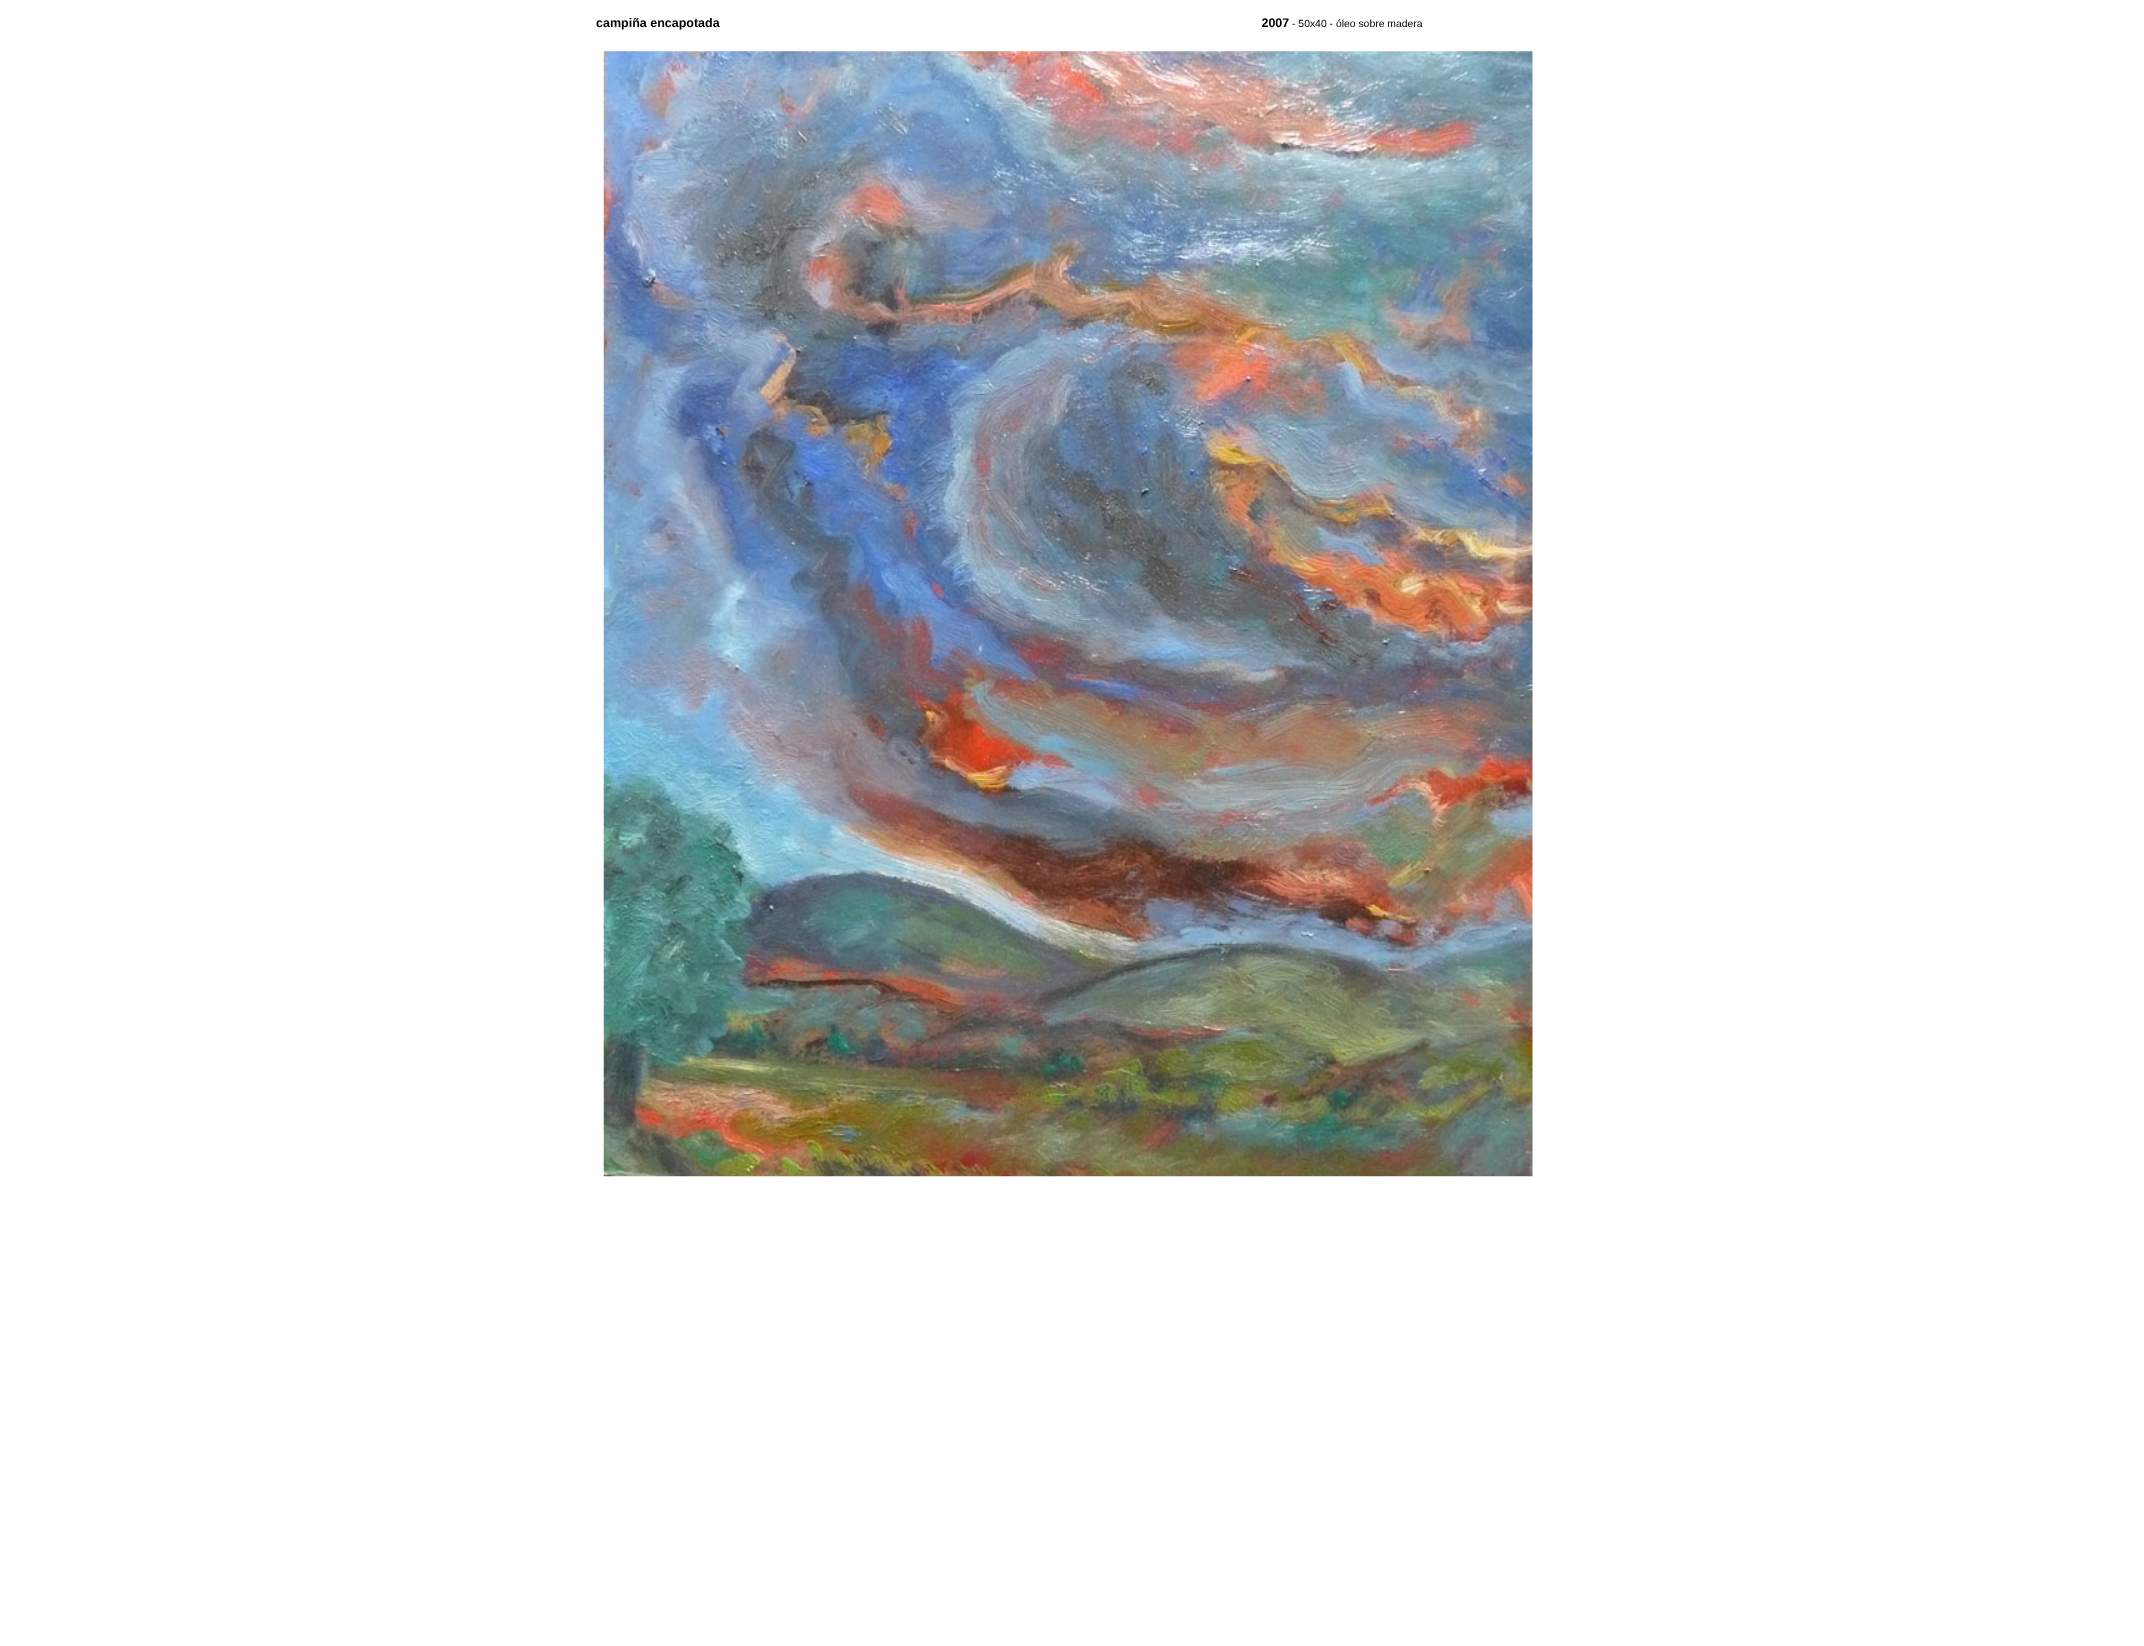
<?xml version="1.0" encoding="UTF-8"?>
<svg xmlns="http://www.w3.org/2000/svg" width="2144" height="1646">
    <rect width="100%" height="100%" fill="#FFFFFF"/>
    <text x="596" y="27" font-family="Liberation Sans" font-size="12.5" font-weight="700" fill="#000000" xml:space="preserve">campiña encapotada                                                                                                                                                            2007</text>
    <text x="1292" y="27" font-family="Liberation Sans" font-size="10.4" fill="#000000">- 50x40 - óleo sobre madera</text>
    <image x="603" y="51" width="930" height="1126" href="img_01.png"/>
</svg>
